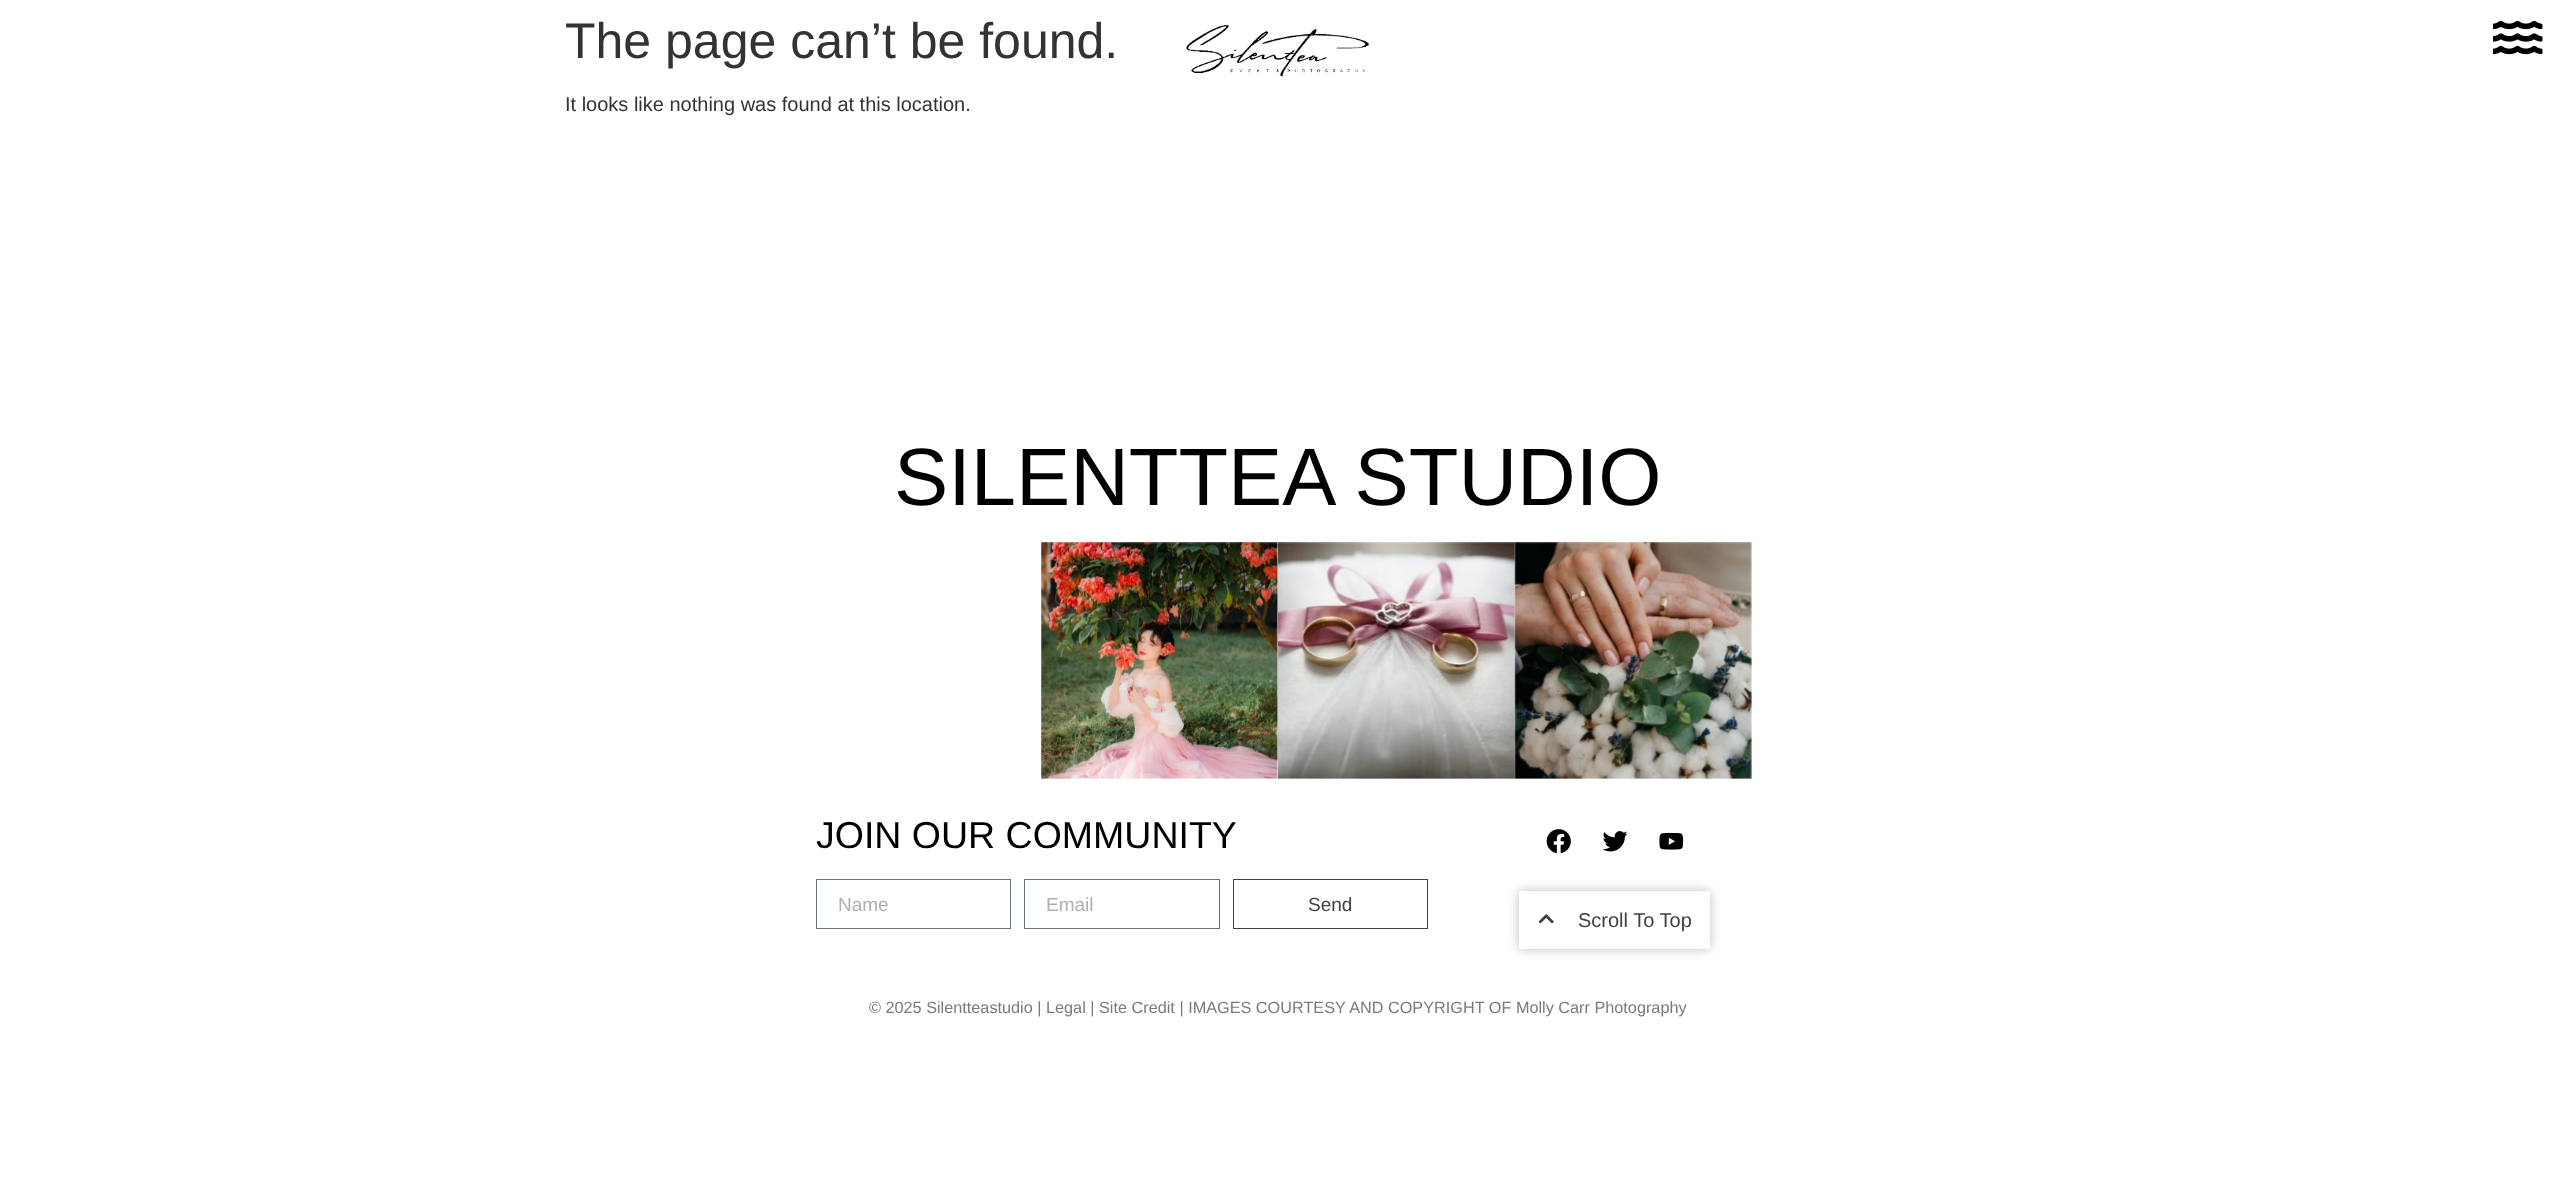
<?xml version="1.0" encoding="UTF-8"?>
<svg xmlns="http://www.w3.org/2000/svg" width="2555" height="1182">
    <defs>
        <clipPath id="clip1"><path d="M 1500 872 H 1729 V 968 H 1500 Z M 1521.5 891 H 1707.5 C 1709 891 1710 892 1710 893.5 V 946.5 C 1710 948 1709 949 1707.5 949 H 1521.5 C 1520 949 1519 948 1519 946.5 V 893.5 C 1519 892 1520 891 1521.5 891 Z" clip-rule="evenodd"/></clipPath>
        <filter id="blur1" x="-50%" y="-200%" width="200%" height="500%"><feGaussianBlur stdDeviation="6"/></filter>
    </defs>
    <rect width="100%" height="100%" fill="#FFFFFF"/>
    <text x="565" y="58" font-family="Liberation Sans" font-size="50" fill="#333333">The page can’t be found.</text>
    <text x="565" y="111" font-family="Liberation Sans" font-size="20" fill="#333333">It looks like nothing was found at this location.</text>
    <image x="1186" y="25" width="183" height="52" href="img_01.png"/>
    <image x="2493" y="20" width="50" height="35" href="img_02.png"/>
    <text x="894" y="505" font-family="Liberation Sans" font-size="81.25" fill="#000000">SILENTTEA STUDIO</text>
    <image x="1041" y="542" width="237" height="237" href="img_03.png"/>
    <image x="1278" y="542" width="238" height="237" href="img_04.png"/>
    <image x="1514" y="542" width="238" height="237" href="img_05.png"/>
    <text x="816" y="848" font-family="Liberation Sans" font-size="37.5" fill="#000000">JOIN OUR COMMUNITY</text>
    <rect x="816.5" y="879.5" width="194" height="49" fill="none" stroke="#69727D"/>
    <text x="838" y="911" font-family="Liberation Sans" font-size="19" fill="#AFAFAF">Name</text>
    <rect x="1024.5" y="879.5" width="195" height="49" fill="none" stroke="#69727D"/>
    <text x="1046" y="911" font-family="Liberation Sans" font-size="19" fill="#AFAFAF">Email</text>
    <rect x="1233.5" y="879.5" width="194" height="49" fill="none" stroke="#404040"/>
    <text x="1308" y="911" font-family="Liberation Sans" font-size="19" fill="#404040">Send</text>
    <image x="1546" y="829" width="25" height="25" href="img_06.png"/>
    <image x="1603" y="831" width="25" height="21" href="img_07.png"/>
    <image x="1659" y="832" width="25" height="18" href="img_08.png"/>
    <g clip-path="url(#clip1)">
        <rect x="1519" y="891" width="191" height="58" rx="2.5" fill="#000000" fill-opacity="0.25" filter="url(#blur1)"/>
    </g>
    <image x="1538" y="914" width="16" height="10" href="img_09.png"/>
    <text x="1578" y="927" font-family="Liberation Sans" font-size="20" fill="#404040">Scroll To Top</text>
    <text x="869" y="1013" font-family="Liberation Sans" font-size="16.25" fill="#7A7A7A">© 2025 Silentteastudio | Legal | Site Credit | IMAGES COURTESY AND COPYRIGHT OF Molly Carr Photography</text>
</svg>
